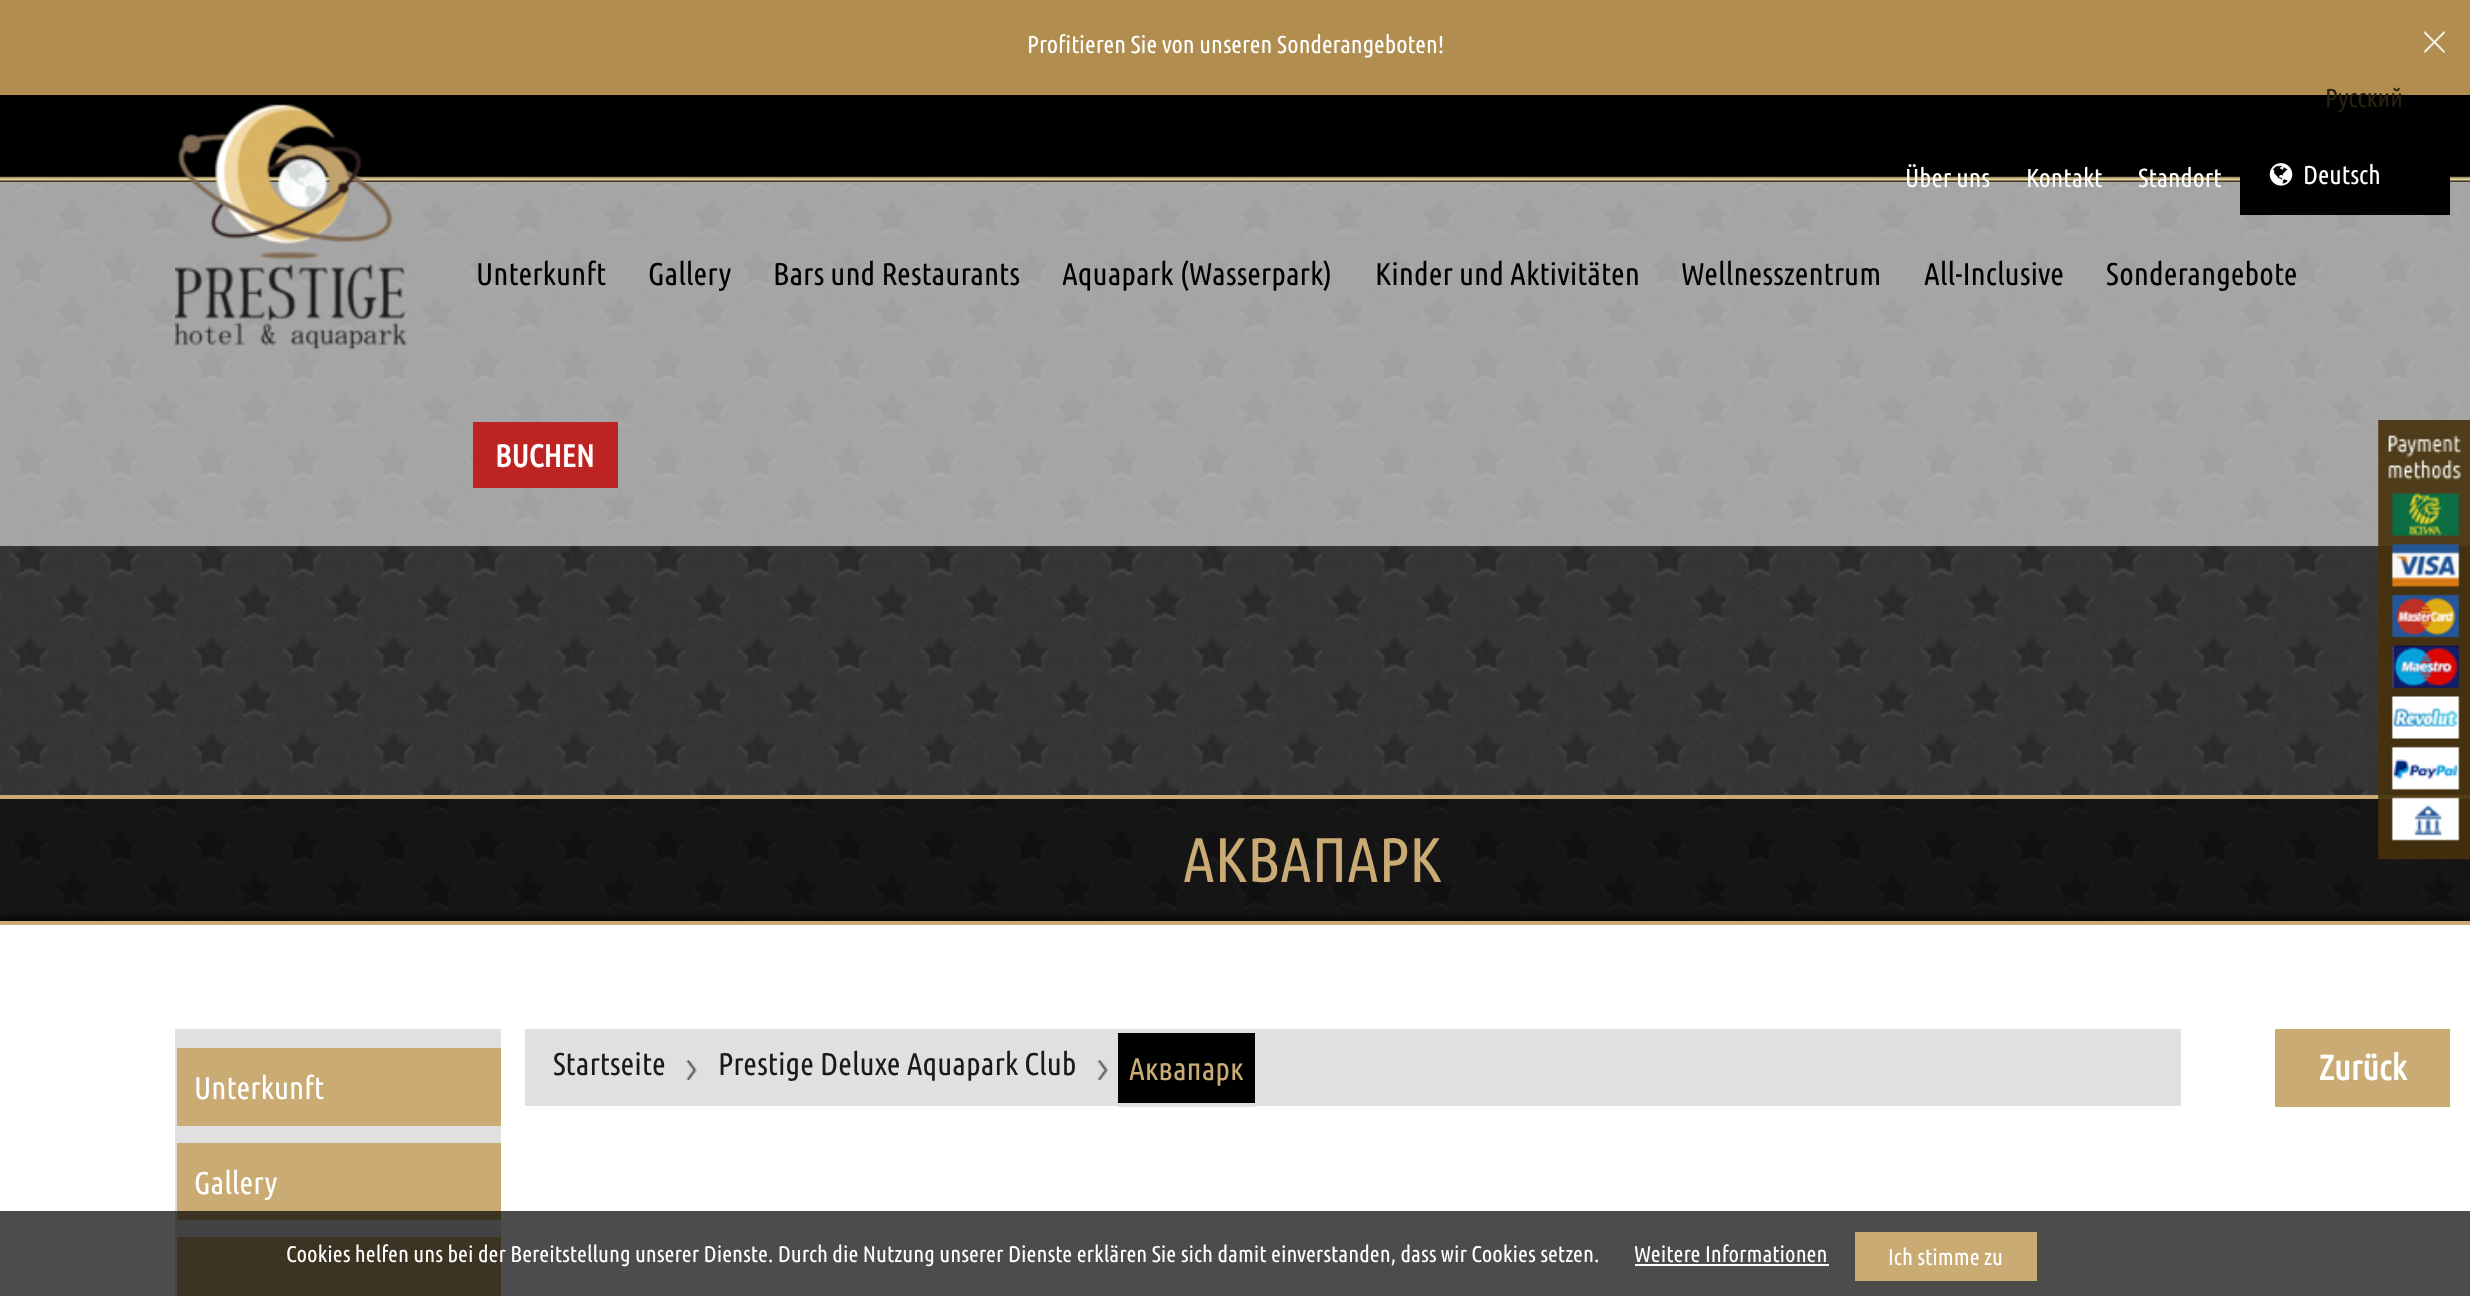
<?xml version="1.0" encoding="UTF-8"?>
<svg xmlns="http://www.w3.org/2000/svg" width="2470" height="1296">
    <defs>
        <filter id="blur1" x="-50%" y="-200%" width="200%" height="500%"><feGaussianBlur stdDeviation="4.5"/></filter>
    </defs>
    <rect width="100%" height="100%" fill="#FFFFFF"/>
    <image x="0" y="182" width="2470" height="739" href="img_01.png"/>
    <rect x="0" y="0" width="2470" height="95" fill="#B18E50"/>
    <text x="1027" y="53" font-family="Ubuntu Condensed" font-size="24.5" fill="#FFFFFF">Profitieren Sie von unseren Sonderangeboten!</text>
    <image x="2423" y="31" width="22" height="22" href="img_02.png"/>
    <rect x="0" y="95" width="2470" height="82" fill="#000000"/>
    <image x="0" y="176" width="2470" height="6" href="img_03.png"/>
    <text x="1905" y="187" font-family="Ubuntu Condensed" font-size="26" fill="#FFFFFF">Über uns</text>
    <text x="2026" y="187" font-family="Ubuntu Condensed" font-size="26" fill="#FFFFFF">Kontakt</text>
    <text x="2138" y="187" font-family="Ubuntu Condensed" font-size="26" fill="#FFFFFF">Standort</text>
    <text x="2325" y="107" font-family="Ubuntu Condensed" font-size="26" fill="#282012">Русский</text>
    <rect x="0" y="182" width="2470" height="364" fill="#F0F0F0" fill-opacity="0.6"/>
    <rect x="2240" y="176" width="210" height="39" fill="#000000"/>
    <image x="2269" y="163" width="24" height="23" href="img_04.png"/>
    <text x="2303" y="184" font-family="Ubuntu Condensed" font-size="26" fill="#FFFFFF">Deutsch</text>
    <image x="175" y="104" width="232" height="246" href="img_05.png"/>
    <text x="476" y="285" font-family="Ubuntu Condensed" font-size="31.5" fill="#000000">Unterkunft</text>
    <text x="648" y="285" font-family="Ubuntu Condensed" font-size="31.5" fill="#000000">Gallery</text>
    <text x="773" y="285" font-family="Ubuntu Condensed" font-size="31.5" fill="#000000">Bars und Restaurants</text>
    <text x="1062" y="285" font-family="Ubuntu Condensed" font-size="31.5" fill="#000000">Aquapark (Wasserpark)</text>
    <text x="1375" y="285" font-family="Ubuntu Condensed" font-size="31.5" fill="#000000">Kinder und Aktivitäten</text>
    <text x="1681" y="285" font-family="Ubuntu Condensed" font-size="31.5" fill="#000000">Wellnesszentrum</text>
    <text x="1924" y="285" font-family="Ubuntu Condensed" font-size="31.5" fill="#000000">All-Inclusive</text>
    <text x="2106" y="285" font-family="Ubuntu Condensed" font-size="31.5" fill="#000000">Sonderangebote</text>
    <rect x="473" y="422" width="145" height="66" fill="#BD2323"/>
    <text x="495" y="467" font-family="Ubuntu Condensed" font-size="31.5" font-weight="700" fill="#FFFFFF">BUCHEN</text>
    <rect x="-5" y="919" width="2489" height="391" fill="#000000" filter="url(#blur1)"/>
    <rect x="0" y="799" width="2470" height="122" fill="#000000" fill-opacity="0.6"/>
    <rect x="0" y="795" width="2470" height="4" fill="#CAAB74"/>
    <rect x="0" y="921" width="2470" height="4" fill="#CAAB74"/>
    <text x="1183" y="882" font-family="Ubuntu Condensed" font-size="63" fill="#CAAB74">АКВАПАРК</text>
    <image x="2378" y="420" width="92" height="440" href="img_06.png"/>
    <rect x="0" y="925" width="2470" height="371" fill="#FFFFFF"/>
    <rect x="525" y="1029" width="1656" height="77" fill="#E0E0E0"/>
    <text x="553" y="1075" font-family="Ubuntu Condensed" font-size="31.5" fill="#1A1A1A">Startseite</text>
    <image x="686" y="1060" width="11" height="20" href="img_07.png"/>
    <text x="718" y="1075" font-family="Ubuntu Condensed" font-size="31.5" fill="#1A1A1A">Prestige Deluxe Aquapark Club</text>
    <image x="1097" y="1060" width="11" height="20" href="img_08.png"/>
    <rect x="1118" y="1033" width="137" height="70" fill="#000000"/>
    <rect x="1118" y="1106" width="137" height="1" fill="#E0E0E0"/>
    <text x="1129" y="1080" font-family="Ubuntu Condensed" font-size="31.5" fill="#CAAB74">Аквапарк</text>
    <rect x="2275" y="1029" width="175" height="78" fill="#CAAB74"/>
    <text x="2319" y="1080" font-family="Ubuntu Condensed" font-size="35" font-weight="700" fill="#FFFFFF">Zurück</text>
    <rect x="175" y="1029" width="326" height="267" fill="#E0E0E0"/>
    <rect x="177" y="1048" width="324" height="78" fill="#CAAB74"/>
    <text x="194" y="1099" font-family="Ubuntu Condensed" font-size="31.5" fill="#FFFFFF">Unterkunft</text>
    <rect x="177" y="1143" width="324" height="77" fill="#CAAB74"/>
    <text x="194" y="1194" font-family="Ubuntu Condensed" font-size="31.5" fill="#FFFFFF">Gallery</text>
    <rect x="177" y="1237" width="324" height="59" fill="#CAAB74"/>
    <rect x="0" y="1211" width="2470" height="85" fill="#000000" fill-opacity="0.7"/>
    <text x="286" y="1262" font-family="Ubuntu Condensed" font-size="22.75" fill="#FFFFFF">Cookies helfen uns bei der Bereitstellung unserer Dienste. Durch die Nutzung unserer Dienste erklären Sie sich damit einverstanden, dass wir Cookies setzen.</text>
    <text x="1634" y="1262" font-family="Ubuntu Condensed" font-size="22.75" fill="#FFFFFF">Weitere Informationen</text>
    <rect x="1635" y="1264" width="194" height="2" fill="#FFFFFF"/>
    <rect x="1855" y="1232" width="182" height="49" fill="#CAAB74"/>
    <text x="1888" y="1265" font-family="Ubuntu Condensed" font-size="22.75" fill="#FFFFFF">Ich stimme zu</text>
</svg>
